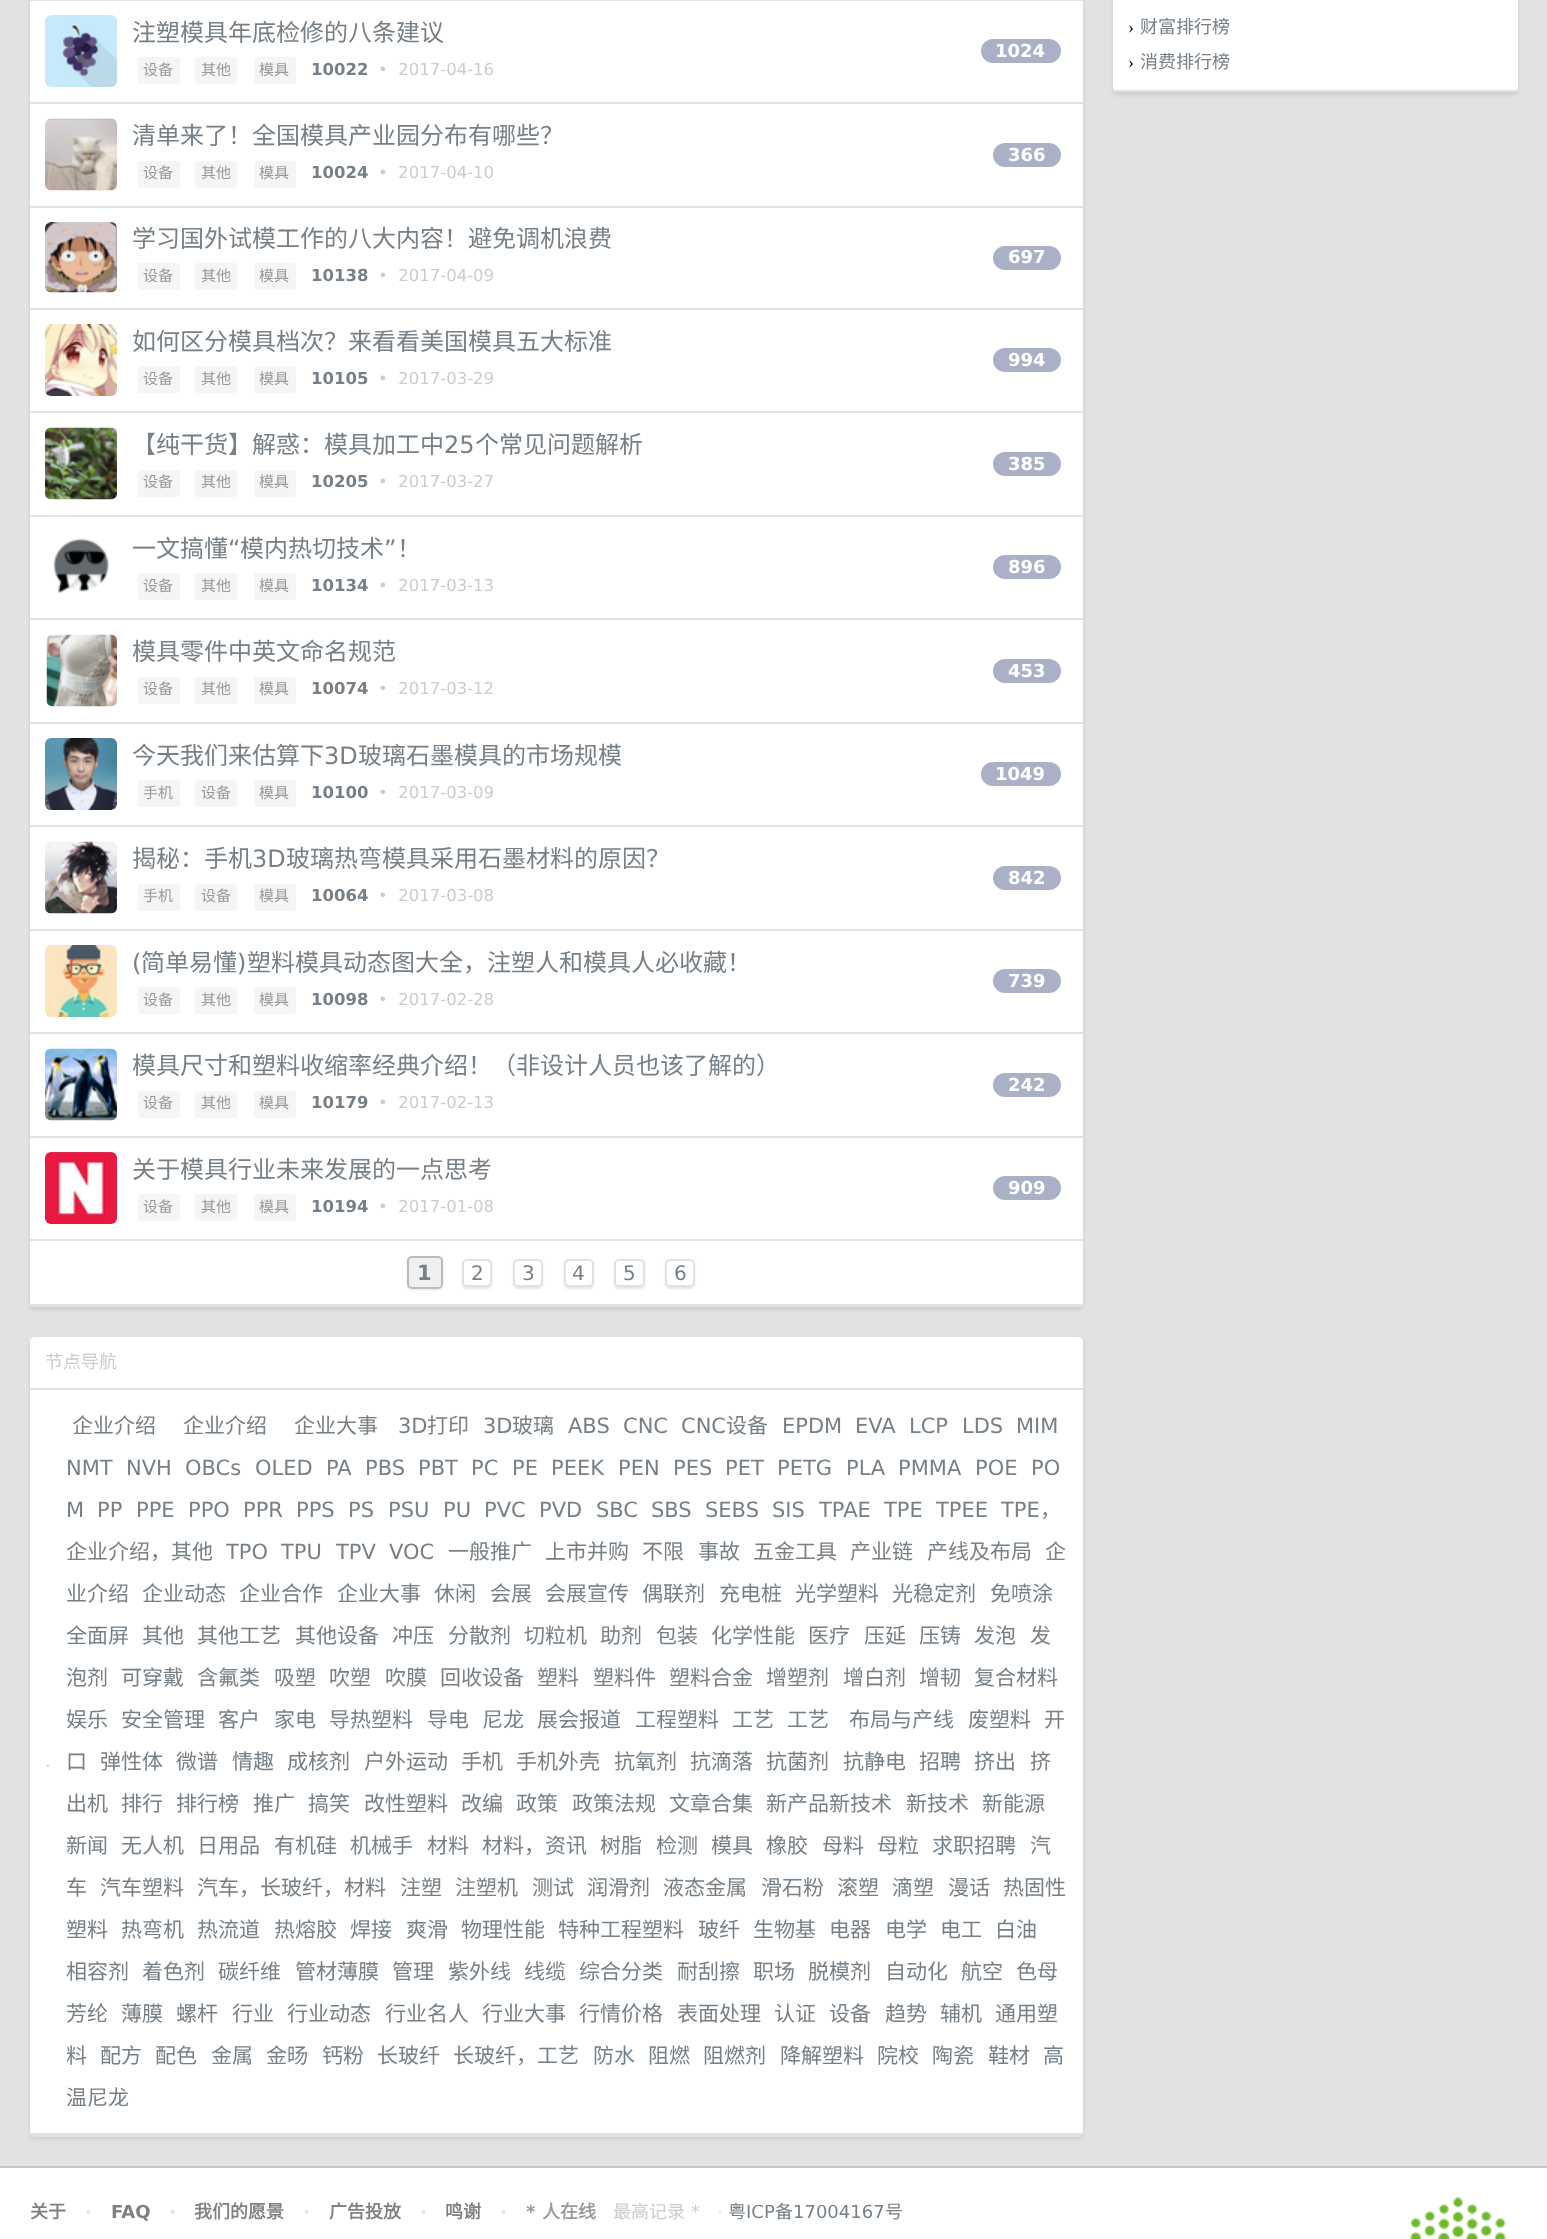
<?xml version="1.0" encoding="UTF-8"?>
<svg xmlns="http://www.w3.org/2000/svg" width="1547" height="2239">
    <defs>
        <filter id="blur1" x="-50%" y="-200%" width="200%" height="500%"><feGaussianBlur stdDeviation="2"/></filter>
        <filter id="blur2" x="-50%" y="-200%" width="200%" height="500%"><feGaussianBlur stdDeviation="1"/></filter>
    </defs>
    <rect width="100%" height="100%" fill="#FFFFFF"/>
    <rect x="0" y="0" width="1547" height="2166" fill="#E2E2E2"/>
    <rect x="30" y="-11" width="1053" height="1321" rx="5" fill="#000000" fill-opacity="0.1" filter="url(#blur1)"/>
    <rect x="30" y="-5" width="1053" height="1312" rx="5" fill="#FFFFFF"/>
    <rect x="33" y="1306" width="1049" height="1" fill="#E2E2E2"/>
    <rect x="30" y="0" width="1053" height="1" fill="#E2E2E2"/>
    <rect x="30" y="102" width="1053" height="2" fill="#E2E2E2"/>
    <image x="45" y="15" width="72" height="72" href="img_01.png"/>
    <text x="132" y="41" font-family="Noto Sans CJK SC" font-size="24" fill="#778087">注塑模具年底检修的八条建议</text>
    <rect x="138" y="57" width="42" height="27" rx="3" fill="#F5F5F5"/>
    <text x="143" y="75" font-family="Noto Sans CJK SC" font-size="15" fill="#999999">设备</text>
    <rect x="195" y="57" width="42" height="27" rx="3" fill="#F5F5F5"/>
    <text x="201" y="75" font-family="Noto Sans CJK SC" font-size="15" fill="#999999">其他</text>
    <rect x="254" y="57" width="42" height="27" rx="3" fill="#F5F5F5"/>
    <text x="259" y="75" font-family="Noto Sans CJK SC" font-size="15" fill="#999999">模具</text>
    <text x="311" y="75" font-family="DejaVu Sans" font-size="16.5" font-weight="700" fill="#778087">10022</text>
    <text x="378" y="75" font-family="DejaVu Sans" font-size="16.5" fill="#CCCCCC" xml:space="preserve">•  2017-04-16</text>
    <rect x="981" y="39" width="80" height="24" rx="12" fill="#AAB0C6"/>
    <text x="995" y="57" font-family="DejaVu Sans" font-size="18" font-weight="700" fill="#FFFFFF">1024</text>
    <rect x="30" y="206" width="1053" height="2" fill="#E2E2E2"/>
    <image x="45" y="118" width="72" height="73" href="img_02.png"/>
    <text x="132" y="144" font-family="Noto Sans CJK SC" font-size="24" fill="#778087">清单来了！全国模具产业园分布有哪些？</text>
    <rect x="138" y="161" width="42" height="27" rx="3" fill="#F5F5F5"/>
    <text x="143" y="178" font-family="Noto Sans CJK SC" font-size="15" fill="#999999">设备</text>
    <rect x="195" y="161" width="42" height="27" rx="3" fill="#F5F5F5"/>
    <text x="201" y="178" font-family="Noto Sans CJK SC" font-size="15" fill="#999999">其他</text>
    <rect x="254" y="161" width="42" height="27" rx="3" fill="#F5F5F5"/>
    <text x="259" y="178" font-family="Noto Sans CJK SC" font-size="15" fill="#999999">模具</text>
    <text x="311" y="178" font-family="DejaVu Sans" font-size="16.5" font-weight="700" fill="#778087">10024</text>
    <text x="378" y="178" font-family="DejaVu Sans" font-size="16.5" fill="#CCCCCC" xml:space="preserve">•  2017-04-10</text>
    <rect x="993" y="143" width="68" height="24" rx="12" fill="#AAB0C6"/>
    <text x="1008" y="161" font-family="DejaVu Sans" font-size="18" font-weight="700" fill="#FFFFFF">366</text>
    <rect x="30" y="308" width="1053" height="2" fill="#E2E2E2"/>
    <image x="45" y="222" width="72" height="71" href="img_03.png"/>
    <text x="132" y="247" font-family="Noto Sans CJK SC" font-size="24" fill="#778087">学习国外试模工作的八大内容！避免调机浪费</text>
    <rect x="138" y="263" width="42" height="27" rx="3" fill="#F5F5F5"/>
    <text x="143" y="281" font-family="Noto Sans CJK SC" font-size="15" fill="#999999">设备</text>
    <rect x="195" y="263" width="42" height="27" rx="3" fill="#F5F5F5"/>
    <text x="201" y="281" font-family="Noto Sans CJK SC" font-size="15" fill="#999999">其他</text>
    <rect x="254" y="263" width="42" height="27" rx="3" fill="#F5F5F5"/>
    <text x="259" y="281" font-family="Noto Sans CJK SC" font-size="15" fill="#999999">模具</text>
    <text x="311" y="281" font-family="DejaVu Sans" font-size="16.5" font-weight="700" fill="#778087">10138</text>
    <text x="378" y="281" font-family="DejaVu Sans" font-size="16.5" fill="#CCCCCC" xml:space="preserve">•  2017-04-09</text>
    <rect x="993" y="246" width="68" height="24" rx="12" fill="#AAB0C6"/>
    <text x="1008" y="263" font-family="DejaVu Sans" font-size="18" font-weight="700" fill="#FFFFFF">697</text>
    <rect x="30" y="411" width="1053" height="2" fill="#E2E2E2"/>
    <image x="45" y="324" width="72" height="72" href="img_04.png"/>
    <text x="132" y="350" font-family="Noto Sans CJK SC" font-size="24" fill="#778087">如何区分模具档次？来看看美国模具五大标准</text>
    <rect x="138" y="366" width="42" height="27" rx="3" fill="#F5F5F5"/>
    <text x="143" y="384" font-family="Noto Sans CJK SC" font-size="15" fill="#999999">设备</text>
    <rect x="195" y="366" width="42" height="27" rx="3" fill="#F5F5F5"/>
    <text x="201" y="384" font-family="Noto Sans CJK SC" font-size="15" fill="#999999">其他</text>
    <rect x="254" y="366" width="42" height="27" rx="3" fill="#F5F5F5"/>
    <text x="259" y="384" font-family="Noto Sans CJK SC" font-size="15" fill="#999999">模具</text>
    <text x="311" y="384" font-family="DejaVu Sans" font-size="16.5" font-weight="700" fill="#778087">10105</text>
    <text x="378" y="384" font-family="DejaVu Sans" font-size="16.5" fill="#CCCCCC" xml:space="preserve">•  2017-03-29</text>
    <rect x="993" y="348" width="68" height="24" rx="12" fill="#AAB0C6"/>
    <text x="1008" y="366" font-family="DejaVu Sans" font-size="18" font-weight="700" fill="#FFFFFF">994</text>
    <rect x="30" y="515" width="1053" height="2" fill="#E2E2E2"/>
    <image x="45" y="427" width="72" height="73" href="img_05.png"/>
    <text x="132" y="453" font-family="Noto Sans CJK SC" font-size="24" fill="#778087">【纯干货】解惑：模具加工中</text>
    <text x="444" y="453" font-family="DejaVu Sans" font-size="24" fill="#778087">25</text>
    <text x="475" y="453" font-family="Noto Sans CJK SC" font-size="24" fill="#778087">个常见问题解析</text>
    <rect x="138" y="470" width="42" height="27" rx="3" fill="#F5F5F5"/>
    <text x="143" y="487" font-family="Noto Sans CJK SC" font-size="15" fill="#999999">设备</text>
    <rect x="195" y="470" width="42" height="27" rx="3" fill="#F5F5F5"/>
    <text x="201" y="487" font-family="Noto Sans CJK SC" font-size="15" fill="#999999">其他</text>
    <rect x="254" y="470" width="42" height="27" rx="3" fill="#F5F5F5"/>
    <text x="259" y="487" font-family="Noto Sans CJK SC" font-size="15" fill="#999999">模具</text>
    <text x="311" y="487" font-family="DejaVu Sans" font-size="16.5" font-weight="700" fill="#778087">10205</text>
    <text x="378" y="487" font-family="DejaVu Sans" font-size="16.5" fill="#CCCCCC" xml:space="preserve">•  2017-03-27</text>
    <rect x="993" y="452" width="68" height="24" rx="12" fill="#AAB0C6"/>
    <text x="1008" y="470" font-family="DejaVu Sans" font-size="18" font-weight="700" fill="#FFFFFF">385</text>
    <rect x="30" y="618" width="1053" height="2" fill="#E2E2E2"/>
    <image x="53" y="538" width="57" height="55" href="img_06.png"/>
    <text x="132" y="557" font-family="Noto Sans CJK SC" font-size="24" fill="#778087">一文搞懂</text>
    <text x="228" y="557" font-family="DejaVu Sans" font-size="24" fill="#778087">“</text>
    <text x="240" y="557" font-family="Noto Sans CJK SC" font-size="24" fill="#778087">模内热切技术</text>
    <text x="384" y="557" font-family="DejaVu Sans" font-size="24" fill="#778087">”</text>
    <text x="397" y="557" font-family="Noto Sans CJK SC" font-size="24" fill="#778087">！</text>
    <rect x="138" y="573" width="42" height="27" rx="3" fill="#F5F5F5"/>
    <text x="143" y="591" font-family="Noto Sans CJK SC" font-size="15" fill="#999999">设备</text>
    <rect x="195" y="573" width="42" height="27" rx="3" fill="#F5F5F5"/>
    <text x="201" y="591" font-family="Noto Sans CJK SC" font-size="15" fill="#999999">其他</text>
    <rect x="254" y="573" width="42" height="27" rx="3" fill="#F5F5F5"/>
    <text x="259" y="591" font-family="Noto Sans CJK SC" font-size="15" fill="#999999">模具</text>
    <text x="311" y="591" font-family="DejaVu Sans" font-size="16.5" font-weight="700" fill="#778087">10134</text>
    <text x="378" y="591" font-family="DejaVu Sans" font-size="16.5" fill="#CCCCCC" xml:space="preserve">•  2017-03-13</text>
    <rect x="993" y="555" width="68" height="24" rx="12" fill="#AAB0C6"/>
    <text x="1008" y="573" font-family="DejaVu Sans" font-size="18" font-weight="700" fill="#FFFFFF">896</text>
    <rect x="30" y="722" width="1053" height="2" fill="#E2E2E2"/>
    <image x="46" y="634" width="71" height="73" href="img_07.png"/>
    <text x="132" y="660" font-family="Noto Sans CJK SC" font-size="24" fill="#778087">模具零件中英文命名规范</text>
    <rect x="138" y="677" width="42" height="27" rx="3" fill="#F5F5F5"/>
    <text x="143" y="694" font-family="Noto Sans CJK SC" font-size="15" fill="#999999">设备</text>
    <rect x="195" y="677" width="42" height="27" rx="3" fill="#F5F5F5"/>
    <text x="201" y="694" font-family="Noto Sans CJK SC" font-size="15" fill="#999999">其他</text>
    <rect x="254" y="677" width="42" height="27" rx="3" fill="#F5F5F5"/>
    <text x="259" y="694" font-family="Noto Sans CJK SC" font-size="15" fill="#999999">模具</text>
    <text x="311" y="694" font-family="DejaVu Sans" font-size="16.5" font-weight="700" fill="#778087">10074</text>
    <text x="378" y="694" font-family="DejaVu Sans" font-size="16.5" fill="#CCCCCC" xml:space="preserve">•  2017-03-12</text>
    <rect x="993" y="659" width="68" height="24" rx="12" fill="#AAB0C6"/>
    <text x="1008" y="677" font-family="DejaVu Sans" font-size="18" font-weight="700" fill="#FFFFFF">453</text>
    <rect x="30" y="825" width="1053" height="2" fill="#E2E2E2"/>
    <image x="45" y="738" width="72" height="72" href="img_08.png"/>
    <text x="132" y="764" font-family="Noto Sans CJK SC" font-size="24" fill="#778087">今天我们来估算下</text>
    <text x="324" y="764" font-family="DejaVu Sans" font-size="24" fill="#778087">3D</text>
    <text x="358" y="764" font-family="Noto Sans CJK SC" font-size="24" fill="#778087">玻璃石墨模具的市场规模</text>
    <rect x="138" y="780" width="42" height="27" rx="3" fill="#F5F5F5"/>
    <text x="143" y="798" font-family="Noto Sans CJK SC" font-size="15" fill="#999999">手机</text>
    <rect x="195" y="780" width="42" height="27" rx="3" fill="#F5F5F5"/>
    <text x="201" y="798" font-family="Noto Sans CJK SC" font-size="15" fill="#999999">设备</text>
    <rect x="254" y="780" width="42" height="27" rx="3" fill="#F5F5F5"/>
    <text x="259" y="798" font-family="Noto Sans CJK SC" font-size="15" fill="#999999">模具</text>
    <text x="311" y="798" font-family="DejaVu Sans" font-size="16.5" font-weight="700" fill="#778087">10100</text>
    <text x="378" y="798" font-family="DejaVu Sans" font-size="16.5" fill="#CCCCCC" xml:space="preserve">•  2017-03-09</text>
    <rect x="981" y="762" width="80" height="24" rx="12" fill="#AAB0C6"/>
    <text x="995" y="780" font-family="DejaVu Sans" font-size="18" font-weight="700" fill="#FFFFFF">1049</text>
    <rect x="30" y="929" width="1053" height="2" fill="#E2E2E2"/>
    <image x="45" y="841" width="72" height="73" href="img_09.png"/>
    <text x="132" y="867" font-family="Noto Sans CJK SC" font-size="24" fill="#778087">揭秘：手机</text>
    <text x="252" y="867" font-family="DejaVu Sans" font-size="24" fill="#778087">3D</text>
    <text x="286" y="867" font-family="Noto Sans CJK SC" font-size="24" fill="#778087">玻璃热弯模具采用石墨材料的原因？</text>
    <rect x="138" y="884" width="42" height="27" rx="3" fill="#F5F5F5"/>
    <text x="143" y="901" font-family="Noto Sans CJK SC" font-size="15" fill="#999999">手机</text>
    <rect x="195" y="884" width="42" height="27" rx="3" fill="#F5F5F5"/>
    <text x="201" y="901" font-family="Noto Sans CJK SC" font-size="15" fill="#999999">设备</text>
    <rect x="254" y="884" width="42" height="27" rx="3" fill="#F5F5F5"/>
    <text x="259" y="901" font-family="Noto Sans CJK SC" font-size="15" fill="#999999">模具</text>
    <text x="311" y="901" font-family="DejaVu Sans" font-size="16.5" font-weight="700" fill="#778087">10064</text>
    <text x="378" y="901" font-family="DejaVu Sans" font-size="16.5" fill="#CCCCCC" xml:space="preserve">•  2017-03-08</text>
    <rect x="993" y="866" width="68" height="24" rx="12" fill="#AAB0C6"/>
    <text x="1008" y="884" font-family="DejaVu Sans" font-size="18" font-weight="700" fill="#FFFFFF">842</text>
    <rect x="30" y="1032" width="1053" height="2" fill="#E2E2E2"/>
    <image x="45" y="945" width="72" height="72" href="img_10.png"/>
    <text x="132" y="971" font-family="DejaVu Sans" font-size="24" fill="#778087">(</text>
    <text x="141" y="971" font-family="Noto Sans CJK SC" font-size="24" fill="#778087">简单易懂</text>
    <text x="237" y="971" font-family="DejaVu Sans" font-size="24" fill="#778087">)</text>
    <text x="247" y="971" font-family="Noto Sans CJK SC" font-size="24" fill="#778087">塑料模具动态图大全，注塑人和模具人必收藏！</text>
    <rect x="138" y="987" width="42" height="27" rx="3" fill="#F5F5F5"/>
    <text x="143" y="1005" font-family="Noto Sans CJK SC" font-size="15" fill="#999999">设备</text>
    <rect x="195" y="987" width="42" height="27" rx="3" fill="#F5F5F5"/>
    <text x="201" y="1005" font-family="Noto Sans CJK SC" font-size="15" fill="#999999">其他</text>
    <rect x="254" y="987" width="42" height="27" rx="3" fill="#F5F5F5"/>
    <text x="259" y="1005" font-family="Noto Sans CJK SC" font-size="15" fill="#999999">模具</text>
    <text x="311" y="1005" font-family="DejaVu Sans" font-size="16.5" font-weight="700" fill="#778087">10098</text>
    <text x="378" y="1005" font-family="DejaVu Sans" font-size="16.5" fill="#CCCCCC" xml:space="preserve">•  2017-02-28</text>
    <rect x="993" y="969" width="68" height="24" rx="12" fill="#AAB0C6"/>
    <text x="1008" y="987" font-family="DejaVu Sans" font-size="18" font-weight="700" fill="#FFFFFF">739</text>
    <rect x="30" y="1136" width="1053" height="2" fill="#E2E2E2"/>
    <image x="45" y="1048" width="72" height="73" href="img_11.png"/>
    <text x="132" y="1074" font-family="Noto Sans CJK SC" font-size="24" fill="#778087">模具尺寸和塑料收缩率经典介绍！（非设计人员也该了解的）</text>
    <rect x="138" y="1091" width="42" height="27" rx="3" fill="#F5F5F5"/>
    <text x="143" y="1108" font-family="Noto Sans CJK SC" font-size="15" fill="#999999">设备</text>
    <rect x="195" y="1091" width="42" height="27" rx="3" fill="#F5F5F5"/>
    <text x="201" y="1108" font-family="Noto Sans CJK SC" font-size="15" fill="#999999">其他</text>
    <rect x="254" y="1091" width="42" height="27" rx="3" fill="#F5F5F5"/>
    <text x="259" y="1108" font-family="Noto Sans CJK SC" font-size="15" fill="#999999">模具</text>
    <text x="311" y="1108" font-family="DejaVu Sans" font-size="16.5" font-weight="700" fill="#778087">10179</text>
    <text x="378" y="1108" font-family="DejaVu Sans" font-size="16.5" fill="#CCCCCC" xml:space="preserve">•  2017-02-13</text>
    <rect x="993" y="1073" width="68" height="24" rx="12" fill="#AAB0C6"/>
    <text x="1008" y="1091" font-family="DejaVu Sans" font-size="18" font-weight="700" fill="#FFFFFF">242</text>
    <rect x="30" y="1239" width="1053" height="2" fill="#E2E2E2"/>
    <image x="45" y="1152" width="72" height="72" href="img_12.png"/>
    <text x="132" y="1178" font-family="Noto Sans CJK SC" font-size="24" fill="#778087">关于模具行业未来发展的一点思考</text>
    <rect x="138" y="1194" width="42" height="27" rx="3" fill="#F5F5F5"/>
    <text x="143" y="1212" font-family="Noto Sans CJK SC" font-size="15" fill="#999999">设备</text>
    <rect x="195" y="1194" width="42" height="27" rx="3" fill="#F5F5F5"/>
    <text x="201" y="1212" font-family="Noto Sans CJK SC" font-size="15" fill="#999999">其他</text>
    <rect x="254" y="1194" width="42" height="27" rx="3" fill="#F5F5F5"/>
    <text x="259" y="1212" font-family="Noto Sans CJK SC" font-size="15" fill="#999999">模具</text>
    <text x="311" y="1212" font-family="DejaVu Sans" font-size="16.5" font-weight="700" fill="#778087">10194</text>
    <text x="378" y="1212" font-family="DejaVu Sans" font-size="16.5" fill="#CCCCCC" xml:space="preserve">•  2017-01-08</text>
    <rect x="993" y="1176" width="68" height="24" rx="12" fill="#AAB0C6"/>
    <text x="1008" y="1194" font-family="DejaVu Sans" font-size="18" font-weight="700" fill="#FFFFFF">909</text>
    <rect x="30" y="1304" width="1053" height="2" fill="#E2E2E2"/>
    <rect x="407" y="1257" width="36" height="33" rx="5" fill="#000000" fill-opacity="0.1" filter="url(#blur2)"/>
    <rect x="408" y="1257" width="34" height="31" rx="4" fill="#F0F0F0" stroke="#BBBBBB" stroke-width="2"/>
    <text x="417" y="1280" font-family="DejaVu Sans" font-size="21" font-weight="700" fill="#778087">1</text>
    <rect x="462" y="1260" width="30" height="29" rx="5" fill="#000000" fill-opacity="0.1" filter="url(#blur2)"/>
    <rect x="463" y="1260" width="28" height="26" rx="4" fill="#FFFFFF" stroke="#E2E2E2" stroke-width="2"/>
    <text x="471" y="1280" font-family="DejaVu Sans" font-size="20" fill="#778087">2</text>
    <rect x="513" y="1260" width="30" height="29" rx="5" fill="#000000" fill-opacity="0.1" filter="url(#blur2)"/>
    <rect x="514" y="1260" width="28" height="26" rx="4" fill="#FFFFFF" stroke="#E2E2E2" stroke-width="2"/>
    <text x="522" y="1280" font-family="DejaVu Sans" font-size="20" fill="#778087">3</text>
    <rect x="564" y="1260" width="30" height="29" rx="5" fill="#000000" fill-opacity="0.1" filter="url(#blur2)"/>
    <rect x="565" y="1260" width="28" height="26" rx="4" fill="#FFFFFF" stroke="#E2E2E2" stroke-width="2"/>
    <text x="572" y="1280" font-family="DejaVu Sans" font-size="20" fill="#778087">4</text>
    <rect x="614" y="1260" width="31" height="29" rx="5" fill="#000000" fill-opacity="0.1" filter="url(#blur2)"/>
    <rect x="615" y="1260" width="29" height="26" rx="4" fill="#FFFFFF" stroke="#E2E2E2" stroke-width="2"/>
    <text x="623" y="1280" font-family="DejaVu Sans" font-size="20" fill="#778087">5</text>
    <rect x="665" y="1260" width="30" height="29" rx="5" fill="#000000" fill-opacity="0.1" filter="url(#blur2)"/>
    <rect x="666" y="1260" width="28" height="26" rx="4" fill="#FFFFFF" stroke="#E2E2E2" stroke-width="2"/>
    <text x="674" y="1280" font-family="DejaVu Sans" font-size="20" fill="#778087">6</text>
    <rect x="30" y="1340" width="1053" height="799" rx="5" fill="#000000" fill-opacity="0.1" filter="url(#blur1)"/>
    <rect x="30" y="1337" width="1053" height="799" rx="5" fill="#FFFFFF"/>
    <rect x="33" y="2135" width="1049" height="2" fill="#E2E2E2"/>
    <rect x="30" y="1388" width="1053" height="2" fill="#E2E2E2"/>
    <text x="45" y="1368" font-family="Noto Sans CJK SC" font-size="18" fill="#CCCCCC">节点导航</text>
    <rect x="30" y="2133" width="1053" height="2" fill="#E2E2E2"/>
    <text x="45" y="1767" font-family="DejaVu Sans" font-size="18" fill="#CCCCCC">.</text>
    <text x="72" y="1433" font-family="Noto Sans CJK SC" font-size="21" fill="#778087">企业介绍</text>
    <text x="183" y="1433" font-family="Noto Sans CJK SC" font-size="21" fill="#778087">企业介绍</text>
    <text x="294" y="1433" font-family="Noto Sans CJK SC" font-size="21" fill="#778087">企业大事</text>
    <text x="398" y="1433" font-family="DejaVu Sans" font-size="21" fill="#778087">3D</text>
    <text x="427" y="1433" font-family="Noto Sans CJK SC" font-size="21" fill="#778087">打印</text>
    <text x="483" y="1433" font-family="DejaVu Sans" font-size="21" fill="#778087">3D</text>
    <text x="512" y="1433" font-family="Noto Sans CJK SC" font-size="21" fill="#778087">玻璃</text>
    <text x="568" y="1433" font-family="DejaVu Sans" font-size="21" fill="#778087">ABS</text>
    <text x="623" y="1433" font-family="DejaVu Sans" font-size="21" fill="#778087">CNC</text>
    <text x="681" y="1433" font-family="DejaVu Sans" font-size="21" fill="#778087">CNC</text>
    <text x="726" y="1433" font-family="Noto Sans CJK SC" font-size="21" fill="#778087">设备</text>
    <text x="782" y="1433" font-family="DejaVu Sans" font-size="21" fill="#778087">EPDM</text>
    <text x="855" y="1433" font-family="DejaVu Sans" font-size="21" fill="#778087">EVA</text>
    <text x="909" y="1433" font-family="DejaVu Sans" font-size="21" fill="#778087">LCP</text>
    <text x="962" y="1433" font-family="DejaVu Sans" font-size="21" fill="#778087">LDS</text>
    <text x="1016" y="1433" font-family="DejaVu Sans" font-size="21" fill="#778087">MIM</text>
    <text x="66" y="1475" font-family="DejaVu Sans" font-size="21" fill="#778087">NMT</text>
    <text x="126" y="1475" font-family="DejaVu Sans" font-size="21" fill="#778087">NVH</text>
    <text x="185" y="1475" font-family="DejaVu Sans" font-size="21" fill="#778087">OBCs</text>
    <text x="255" y="1475" font-family="DejaVu Sans" font-size="21" fill="#778087">OLED</text>
    <text x="326" y="1475" font-family="DejaVu Sans" font-size="21" fill="#778087">PA</text>
    <text x="365" y="1475" font-family="DejaVu Sans" font-size="21" fill="#778087">PBS</text>
    <text x="418" y="1475" font-family="DejaVu Sans" font-size="21" fill="#778087">PBT</text>
    <text x="471" y="1475" font-family="DejaVu Sans" font-size="21" fill="#778087">PC</text>
    <text x="512" y="1475" font-family="DejaVu Sans" font-size="21" fill="#778087">PE</text>
    <text x="551" y="1475" font-family="DejaVu Sans" font-size="21" fill="#778087">PEEK</text>
    <text x="618" y="1475" font-family="DejaVu Sans" font-size="21" fill="#778087">PEN</text>
    <text x="673" y="1475" font-family="DejaVu Sans" font-size="21" fill="#778087">PES</text>
    <text x="725" y="1475" font-family="DejaVu Sans" font-size="21" fill="#778087">PET</text>
    <text x="777" y="1475" font-family="DejaVu Sans" font-size="21" fill="#778087">PETG</text>
    <text x="846" y="1475" font-family="DejaVu Sans" font-size="21" fill="#778087">PLA</text>
    <text x="898" y="1475" font-family="DejaVu Sans" font-size="21" fill="#778087">PMMA</text>
    <text x="975" y="1475" font-family="DejaVu Sans" font-size="21" fill="#778087">POE</text>
    <text x="1031" y="1475" font-family="DejaVu Sans" font-size="21" fill="#778087">PO</text>
    <text x="66" y="1517" font-family="DejaVu Sans" font-size="21" fill="#778087">M</text>
    <text x="97" y="1517" font-family="DejaVu Sans" font-size="21" fill="#778087">PP</text>
    <text x="136" y="1517" font-family="DejaVu Sans" font-size="21" fill="#778087">PPE</text>
    <text x="188" y="1517" font-family="DejaVu Sans" font-size="21" fill="#778087">PPO</text>
    <text x="243" y="1517" font-family="DejaVu Sans" font-size="21" fill="#778087">PPR</text>
    <text x="296" y="1517" font-family="DejaVu Sans" font-size="21" fill="#778087">PPS</text>
    <text x="348" y="1517" font-family="DejaVu Sans" font-size="21" fill="#778087">PS</text>
    <text x="388" y="1517" font-family="DejaVu Sans" font-size="21" fill="#778087">PSU</text>
    <text x="443" y="1517" font-family="DejaVu Sans" font-size="21" fill="#778087">PU</text>
    <text x="484" y="1517" font-family="DejaVu Sans" font-size="21" fill="#778087">PVC</text>
    <text x="539" y="1517" font-family="DejaVu Sans" font-size="21" fill="#778087">PVD</text>
    <text x="596" y="1517" font-family="DejaVu Sans" font-size="21" fill="#778087">SBC</text>
    <text x="651" y="1517" font-family="DejaVu Sans" font-size="21" fill="#778087">SBS</text>
    <text x="705" y="1517" font-family="DejaVu Sans" font-size="21" fill="#778087">SEBS</text>
    <text x="772" y="1517" font-family="DejaVu Sans" font-size="21" fill="#778087">SIS</text>
    <text x="819" y="1517" font-family="DejaVu Sans" font-size="21" fill="#778087">TPAE</text>
    <text x="884" y="1517" font-family="DejaVu Sans" font-size="21" fill="#778087">TPE</text>
    <text x="936" y="1517" font-family="DejaVu Sans" font-size="21" fill="#778087">TPEE</text>
    <text x="1001" y="1517" font-family="DejaVu Sans" font-size="21" fill="#778087">TPE</text>
    <text x="1040" y="1517" font-family="Noto Sans CJK SC" font-size="21" fill="#778087">，</text>
    <text x="66" y="1559" font-family="Noto Sans CJK SC" font-size="21" fill="#778087">企业介绍，其他</text>
    <text x="226" y="1559" font-family="DejaVu Sans" font-size="21" fill="#778087">TPO</text>
    <text x="281" y="1559" font-family="DejaVu Sans" font-size="21" fill="#778087">TPU</text>
    <text x="336" y="1559" font-family="DejaVu Sans" font-size="21" fill="#778087">TPV</text>
    <text x="389" y="1559" font-family="DejaVu Sans" font-size="21" fill="#778087">VOC</text>
    <text x="448" y="1559" font-family="Noto Sans CJK SC" font-size="21" fill="#778087">一般推广</text>
    <text x="545" y="1559" font-family="Noto Sans CJK SC" font-size="21" fill="#778087">上市并购</text>
    <text x="642" y="1559" font-family="Noto Sans CJK SC" font-size="21" fill="#778087">不限</text>
    <text x="698" y="1559" font-family="Noto Sans CJK SC" font-size="21" fill="#778087">事故</text>
    <text x="753" y="1559" font-family="Noto Sans CJK SC" font-size="21" fill="#778087">五金工具</text>
    <text x="850" y="1559" font-family="Noto Sans CJK SC" font-size="21" fill="#778087">产业链</text>
    <text x="927" y="1559" font-family="Noto Sans CJK SC" font-size="21" fill="#778087">产线及布局</text>
    <text x="1045" y="1559" font-family="Noto Sans CJK SC" font-size="21" fill="#778087">企</text>
    <text x="66" y="1601" font-family="Noto Sans CJK SC" font-size="21" fill="#778087">业介绍</text>
    <text x="142" y="1601" font-family="Noto Sans CJK SC" font-size="21" fill="#778087">企业动态</text>
    <text x="239" y="1601" font-family="Noto Sans CJK SC" font-size="21" fill="#778087">企业合作</text>
    <text x="337" y="1601" font-family="Noto Sans CJK SC" font-size="21" fill="#778087">企业大事</text>
    <text x="434" y="1601" font-family="Noto Sans CJK SC" font-size="21" fill="#778087">休闲</text>
    <text x="490" y="1601" font-family="Noto Sans CJK SC" font-size="21" fill="#778087">会展</text>
    <text x="545" y="1601" font-family="Noto Sans CJK SC" font-size="21" fill="#778087">会展宣传</text>
    <text x="642" y="1601" font-family="Noto Sans CJK SC" font-size="21" fill="#778087">偶联剂</text>
    <text x="719" y="1601" font-family="Noto Sans CJK SC" font-size="21" fill="#778087">充电桩</text>
    <text x="795" y="1601" font-family="Noto Sans CJK SC" font-size="21" fill="#778087">光学塑料</text>
    <text x="892" y="1601" font-family="Noto Sans CJK SC" font-size="21" fill="#778087">光稳定剂</text>
    <text x="990" y="1601" font-family="Noto Sans CJK SC" font-size="21" fill="#778087">免喷涂</text>
    <text x="66" y="1643" font-family="Noto Sans CJK SC" font-size="21" fill="#778087">全面屏</text>
    <text x="142" y="1643" font-family="Noto Sans CJK SC" font-size="21" fill="#778087">其他</text>
    <text x="197" y="1643" font-family="Noto Sans CJK SC" font-size="21" fill="#778087">其他工艺</text>
    <text x="295" y="1643" font-family="Noto Sans CJK SC" font-size="21" fill="#778087">其他设备</text>
    <text x="392" y="1643" font-family="Noto Sans CJK SC" font-size="21" fill="#778087">冲压</text>
    <text x="448" y="1643" font-family="Noto Sans CJK SC" font-size="21" fill="#778087">分散剂</text>
    <text x="524" y="1643" font-family="Noto Sans CJK SC" font-size="21" fill="#778087">切粒机</text>
    <text x="600" y="1643" font-family="Noto Sans CJK SC" font-size="21" fill="#778087">助剂</text>
    <text x="656" y="1643" font-family="Noto Sans CJK SC" font-size="21" fill="#778087">包装</text>
    <text x="711" y="1643" font-family="Noto Sans CJK SC" font-size="21" fill="#778087">化学性能</text>
    <text x="808" y="1643" font-family="Noto Sans CJK SC" font-size="21" fill="#778087">医疗</text>
    <text x="864" y="1643" font-family="Noto Sans CJK SC" font-size="21" fill="#778087">压延</text>
    <text x="919" y="1643" font-family="Noto Sans CJK SC" font-size="21" fill="#778087">压铸</text>
    <text x="974" y="1643" font-family="Noto Sans CJK SC" font-size="21" fill="#778087">发泡</text>
    <text x="1030" y="1643" font-family="Noto Sans CJK SC" font-size="21" fill="#778087">发</text>
    <text x="66" y="1685" font-family="Noto Sans CJK SC" font-size="21" fill="#778087">泡剂</text>
    <text x="121" y="1685" font-family="Noto Sans CJK SC" font-size="21" fill="#778087">可穿戴</text>
    <text x="197" y="1685" font-family="Noto Sans CJK SC" font-size="21" fill="#778087">含氟类</text>
    <text x="274" y="1685" font-family="Noto Sans CJK SC" font-size="21" fill="#778087">吸塑</text>
    <text x="329" y="1685" font-family="Noto Sans CJK SC" font-size="21" fill="#778087">吹塑</text>
    <text x="385" y="1685" font-family="Noto Sans CJK SC" font-size="21" fill="#778087">吹膜</text>
    <text x="440" y="1685" font-family="Noto Sans CJK SC" font-size="21" fill="#778087">回收设备</text>
    <text x="537" y="1685" font-family="Noto Sans CJK SC" font-size="21" fill="#778087">塑料</text>
    <text x="593" y="1685" font-family="Noto Sans CJK SC" font-size="21" fill="#778087">塑料件</text>
    <text x="669" y="1685" font-family="Noto Sans CJK SC" font-size="21" fill="#778087">塑料合金</text>
    <text x="766" y="1685" font-family="Noto Sans CJK SC" font-size="21" fill="#778087">增塑剂</text>
    <text x="843" y="1685" font-family="Noto Sans CJK SC" font-size="21" fill="#778087">增白剂</text>
    <text x="919" y="1685" font-family="Noto Sans CJK SC" font-size="21" fill="#778087">增韧</text>
    <text x="974" y="1685" font-family="Noto Sans CJK SC" font-size="21" fill="#778087">复合材料</text>
    <text x="66" y="1727" font-family="Noto Sans CJK SC" font-size="21" fill="#778087">娱乐</text>
    <text x="121" y="1727" font-family="Noto Sans CJK SC" font-size="21" fill="#778087">安全管理</text>
    <text x="218" y="1727" font-family="Noto Sans CJK SC" font-size="21" fill="#778087">客户</text>
    <text x="274" y="1727" font-family="Noto Sans CJK SC" font-size="21" fill="#778087">家电</text>
    <text x="329" y="1727" font-family="Noto Sans CJK SC" font-size="21" fill="#778087">导热塑料</text>
    <text x="427" y="1727" font-family="Noto Sans CJK SC" font-size="21" fill="#778087">导电</text>
    <text x="482" y="1727" font-family="Noto Sans CJK SC" font-size="21" fill="#778087">尼龙</text>
    <text x="537" y="1727" font-family="Noto Sans CJK SC" font-size="21" fill="#778087">展会报道</text>
    <text x="635" y="1727" font-family="Noto Sans CJK SC" font-size="21" fill="#778087">工程塑料</text>
    <text x="732" y="1727" font-family="Noto Sans CJK SC" font-size="21" fill="#778087">工艺</text>
    <text x="787" y="1727" font-family="Noto Sans CJK SC" font-size="21" fill="#778087">工艺</text>
    <text x="849" y="1727" font-family="Noto Sans CJK SC" font-size="21" fill="#778087">布局与产线</text>
    <text x="968" y="1727" font-family="Noto Sans CJK SC" font-size="21" fill="#778087">废塑料</text>
    <text x="1044" y="1727" font-family="Noto Sans CJK SC" font-size="21" fill="#778087">开</text>
    <text x="66" y="1769" font-family="Noto Sans CJK SC" font-size="21" fill="#778087">口</text>
    <text x="100" y="1769" font-family="Noto Sans CJK SC" font-size="21" fill="#778087">弹性体</text>
    <text x="176" y="1769" font-family="Noto Sans CJK SC" font-size="21" fill="#778087">微谱</text>
    <text x="232" y="1769" font-family="Noto Sans CJK SC" font-size="21" fill="#778087">情趣</text>
    <text x="287" y="1769" font-family="Noto Sans CJK SC" font-size="21" fill="#778087">成核剂</text>
    <text x="364" y="1769" font-family="Noto Sans CJK SC" font-size="21" fill="#778087">户外运动</text>
    <text x="461" y="1769" font-family="Noto Sans CJK SC" font-size="21" fill="#778087">手机</text>
    <text x="516" y="1769" font-family="Noto Sans CJK SC" font-size="21" fill="#778087">手机外壳</text>
    <text x="614" y="1769" font-family="Noto Sans CJK SC" font-size="21" fill="#778087">抗氧剂</text>
    <text x="690" y="1769" font-family="Noto Sans CJK SC" font-size="21" fill="#778087">抗滴落</text>
    <text x="766" y="1769" font-family="Noto Sans CJK SC" font-size="21" fill="#778087">抗菌剂</text>
    <text x="843" y="1769" font-family="Noto Sans CJK SC" font-size="21" fill="#778087">抗静电</text>
    <text x="919" y="1769" font-family="Noto Sans CJK SC" font-size="21" fill="#778087">招聘</text>
    <text x="974" y="1769" font-family="Noto Sans CJK SC" font-size="21" fill="#778087">挤出</text>
    <text x="1030" y="1769" font-family="Noto Sans CJK SC" font-size="21" fill="#778087">挤</text>
    <text x="66" y="1811" font-family="Noto Sans CJK SC" font-size="21" fill="#778087">出机</text>
    <text x="121" y="1811" font-family="Noto Sans CJK SC" font-size="21" fill="#778087">排行</text>
    <text x="176" y="1811" font-family="Noto Sans CJK SC" font-size="21" fill="#778087">排行榜</text>
    <text x="253" y="1811" font-family="Noto Sans CJK SC" font-size="21" fill="#778087">推广</text>
    <text x="308" y="1811" font-family="Noto Sans CJK SC" font-size="21" fill="#778087">搞笑</text>
    <text x="364" y="1811" font-family="Noto Sans CJK SC" font-size="21" fill="#778087">改性塑料</text>
    <text x="461" y="1811" font-family="Noto Sans CJK SC" font-size="21" fill="#778087">改编</text>
    <text x="516" y="1811" font-family="Noto Sans CJK SC" font-size="21" fill="#778087">政策</text>
    <text x="572" y="1811" font-family="Noto Sans CJK SC" font-size="21" fill="#778087">政策法规</text>
    <text x="669" y="1811" font-family="Noto Sans CJK SC" font-size="21" fill="#778087">文章合集</text>
    <text x="766" y="1811" font-family="Noto Sans CJK SC" font-size="21" fill="#778087">新产品新技术</text>
    <text x="906" y="1811" font-family="Noto Sans CJK SC" font-size="21" fill="#778087">新技术</text>
    <text x="982" y="1811" font-family="Noto Sans CJK SC" font-size="21" fill="#778087">新能源</text>
    <text x="66" y="1853" font-family="Noto Sans CJK SC" font-size="21" fill="#778087">新闻</text>
    <text x="121" y="1853" font-family="Noto Sans CJK SC" font-size="21" fill="#778087">无人机</text>
    <text x="197" y="1853" font-family="Noto Sans CJK SC" font-size="21" fill="#778087">日用品</text>
    <text x="274" y="1853" font-family="Noto Sans CJK SC" font-size="21" fill="#778087">有机硅</text>
    <text x="350" y="1853" font-family="Noto Sans CJK SC" font-size="21" fill="#778087">机械手</text>
    <text x="427" y="1853" font-family="Noto Sans CJK SC" font-size="21" fill="#778087">材料</text>
    <text x="482" y="1853" font-family="Noto Sans CJK SC" font-size="21" fill="#778087">材料，资讯</text>
    <text x="600" y="1853" font-family="Noto Sans CJK SC" font-size="21" fill="#778087">树脂</text>
    <text x="656" y="1853" font-family="Noto Sans CJK SC" font-size="21" fill="#778087">检测</text>
    <text x="711" y="1853" font-family="Noto Sans CJK SC" font-size="21" fill="#778087">模具</text>
    <text x="766" y="1853" font-family="Noto Sans CJK SC" font-size="21" fill="#778087">橡胶</text>
    <text x="822" y="1853" font-family="Noto Sans CJK SC" font-size="21" fill="#778087">母料</text>
    <text x="877" y="1853" font-family="Noto Sans CJK SC" font-size="21" fill="#778087">母粒</text>
    <text x="932" y="1853" font-family="Noto Sans CJK SC" font-size="21" fill="#778087">求职招聘</text>
    <text x="1030" y="1853" font-family="Noto Sans CJK SC" font-size="21" fill="#778087">汽</text>
    <text x="66" y="1895" font-family="Noto Sans CJK SC" font-size="21" fill="#778087">车</text>
    <text x="100" y="1895" font-family="Noto Sans CJK SC" font-size="21" fill="#778087">汽车塑料</text>
    <text x="197" y="1895" font-family="Noto Sans CJK SC" font-size="21" fill="#778087">汽车，长玻纤，材料</text>
    <text x="400" y="1895" font-family="Noto Sans CJK SC" font-size="21" fill="#778087">注塑</text>
    <text x="455" y="1895" font-family="Noto Sans CJK SC" font-size="21" fill="#778087">注塑机</text>
    <text x="532" y="1895" font-family="Noto Sans CJK SC" font-size="21" fill="#778087">测试</text>
    <text x="587" y="1895" font-family="Noto Sans CJK SC" font-size="21" fill="#778087">润滑剂</text>
    <text x="663" y="1895" font-family="Noto Sans CJK SC" font-size="21" fill="#778087">液态金属</text>
    <text x="761" y="1895" font-family="Noto Sans CJK SC" font-size="21" fill="#778087">滑石粉</text>
    <text x="837" y="1895" font-family="Noto Sans CJK SC" font-size="21" fill="#778087">滚塑</text>
    <text x="892" y="1895" font-family="Noto Sans CJK SC" font-size="21" fill="#778087">滴塑</text>
    <text x="948" y="1895" font-family="Noto Sans CJK SC" font-size="21" fill="#778087">漫话</text>
    <text x="1003" y="1895" font-family="Noto Sans CJK SC" font-size="21" fill="#778087">热固性</text>
    <text x="66" y="1937" font-family="Noto Sans CJK SC" font-size="21" fill="#778087">塑料</text>
    <text x="121" y="1937" font-family="Noto Sans CJK SC" font-size="21" fill="#778087">热弯机</text>
    <text x="197" y="1937" font-family="Noto Sans CJK SC" font-size="21" fill="#778087">热流道</text>
    <text x="274" y="1937" font-family="Noto Sans CJK SC" font-size="21" fill="#778087">热熔胶</text>
    <text x="350" y="1937" font-family="Noto Sans CJK SC" font-size="21" fill="#778087">焊接</text>
    <text x="406" y="1937" font-family="Noto Sans CJK SC" font-size="21" fill="#778087">爽滑</text>
    <text x="461" y="1937" font-family="Noto Sans CJK SC" font-size="21" fill="#778087">物理性能</text>
    <text x="558" y="1937" font-family="Noto Sans CJK SC" font-size="21" fill="#778087">特种工程塑料</text>
    <text x="698" y="1937" font-family="Noto Sans CJK SC" font-size="21" fill="#778087">玻纤</text>
    <text x="753" y="1937" font-family="Noto Sans CJK SC" font-size="21" fill="#778087">生物基</text>
    <text x="829" y="1937" font-family="Noto Sans CJK SC" font-size="21" fill="#778087">电器</text>
    <text x="885" y="1937" font-family="Noto Sans CJK SC" font-size="21" fill="#778087">电学</text>
    <text x="940" y="1937" font-family="Noto Sans CJK SC" font-size="21" fill="#778087">电工</text>
    <text x="995" y="1937" font-family="Noto Sans CJK SC" font-size="21" fill="#778087">白油</text>
    <text x="66" y="1979" font-family="Noto Sans CJK SC" font-size="21" fill="#778087">相容剂</text>
    <text x="142" y="1979" font-family="Noto Sans CJK SC" font-size="21" fill="#778087">着色剂</text>
    <text x="218" y="1979" font-family="Noto Sans CJK SC" font-size="21" fill="#778087">碳纤维</text>
    <text x="295" y="1979" font-family="Noto Sans CJK SC" font-size="21" fill="#778087">管材薄膜</text>
    <text x="392" y="1979" font-family="Noto Sans CJK SC" font-size="21" fill="#778087">管理</text>
    <text x="448" y="1979" font-family="Noto Sans CJK SC" font-size="21" fill="#778087">紫外线</text>
    <text x="524" y="1979" font-family="Noto Sans CJK SC" font-size="21" fill="#778087">线缆</text>
    <text x="579" y="1979" font-family="Noto Sans CJK SC" font-size="21" fill="#778087">综合分类</text>
    <text x="677" y="1979" font-family="Noto Sans CJK SC" font-size="21" fill="#778087">耐刮擦</text>
    <text x="753" y="1979" font-family="Noto Sans CJK SC" font-size="21" fill="#778087">职场</text>
    <text x="808" y="1979" font-family="Noto Sans CJK SC" font-size="21" fill="#778087">脱模剂</text>
    <text x="885" y="1979" font-family="Noto Sans CJK SC" font-size="21" fill="#778087">自动化</text>
    <text x="961" y="1979" font-family="Noto Sans CJK SC" font-size="21" fill="#778087">航空</text>
    <text x="1016" y="1979" font-family="Noto Sans CJK SC" font-size="21" fill="#778087">色母</text>
    <text x="66" y="2021" font-family="Noto Sans CJK SC" font-size="21" fill="#778087">芳纶</text>
    <text x="121" y="2021" font-family="Noto Sans CJK SC" font-size="21" fill="#778087">薄膜</text>
    <text x="176" y="2021" font-family="Noto Sans CJK SC" font-size="21" fill="#778087">螺杆</text>
    <text x="232" y="2021" font-family="Noto Sans CJK SC" font-size="21" fill="#778087">行业</text>
    <text x="287" y="2021" font-family="Noto Sans CJK SC" font-size="21" fill="#778087">行业动态</text>
    <text x="385" y="2021" font-family="Noto Sans CJK SC" font-size="21" fill="#778087">行业名人</text>
    <text x="482" y="2021" font-family="Noto Sans CJK SC" font-size="21" fill="#778087">行业大事</text>
    <text x="579" y="2021" font-family="Noto Sans CJK SC" font-size="21" fill="#778087">行情价格</text>
    <text x="677" y="2021" font-family="Noto Sans CJK SC" font-size="21" fill="#778087">表面处理</text>
    <text x="774" y="2021" font-family="Noto Sans CJK SC" font-size="21" fill="#778087">认证</text>
    <text x="829" y="2021" font-family="Noto Sans CJK SC" font-size="21" fill="#778087">设备</text>
    <text x="885" y="2021" font-family="Noto Sans CJK SC" font-size="21" fill="#778087">趋势</text>
    <text x="940" y="2021" font-family="Noto Sans CJK SC" font-size="21" fill="#778087">辅机</text>
    <text x="995" y="2021" font-family="Noto Sans CJK SC" font-size="21" fill="#778087">通用塑</text>
    <text x="66" y="2063" font-family="Noto Sans CJK SC" font-size="21" fill="#778087">料</text>
    <text x="100" y="2063" font-family="Noto Sans CJK SC" font-size="21" fill="#778087">配方</text>
    <text x="155" y="2063" font-family="Noto Sans CJK SC" font-size="21" fill="#778087">配色</text>
    <text x="211" y="2063" font-family="Noto Sans CJK SC" font-size="21" fill="#778087">金属</text>
    <text x="266" y="2063" font-family="Noto Sans CJK SC" font-size="21" fill="#778087">金旸</text>
    <text x="322" y="2063" font-family="Noto Sans CJK SC" font-size="21" fill="#778087">钙粉</text>
    <text x="377" y="2063" font-family="Noto Sans CJK SC" font-size="21" fill="#778087">长玻纤</text>
    <text x="453" y="2063" font-family="Noto Sans CJK SC" font-size="21" fill="#778087">长玻纤，工艺</text>
    <text x="593" y="2063" font-family="Noto Sans CJK SC" font-size="21" fill="#778087">防水</text>
    <text x="648" y="2063" font-family="Noto Sans CJK SC" font-size="21" fill="#778087">阻燃</text>
    <text x="703" y="2063" font-family="Noto Sans CJK SC" font-size="21" fill="#778087">阻燃剂</text>
    <text x="780" y="2063" font-family="Noto Sans CJK SC" font-size="21" fill="#778087">降解塑料</text>
    <text x="877" y="2063" font-family="Noto Sans CJK SC" font-size="21" fill="#778087">院校</text>
    <text x="932" y="2063" font-family="Noto Sans CJK SC" font-size="21" fill="#778087">陶瓷</text>
    <text x="988" y="2063" font-family="Noto Sans CJK SC" font-size="21" fill="#778087">鞋材</text>
    <text x="1043" y="2063" font-family="Noto Sans CJK SC" font-size="21" fill="#778087">高</text>
    <text x="66" y="2105" font-family="Noto Sans CJK SC" font-size="21" fill="#778087">温尼龙</text>
    <rect x="1113" y="-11" width="405" height="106" rx="5" fill="#000000" fill-opacity="0.1" filter="url(#blur1)"/>
    <rect x="1113" y="-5" width="405" height="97" rx="5" fill="#FFFFFF"/>
    <rect x="1116" y="90" width="401" height="2" fill="#E2E2E2"/>
    <text x="1128" y="33" font-family="Liberation Serif" font-size="18" fill="#000000">›</text>
    <text x="1140" y="33" font-family="Noto Sans CJK SC" font-size="18" fill="#778087">财富排行榜</text>
    <text x="1128" y="68" font-family="Liberation Serif" font-size="18" fill="#000000">›</text>
    <text x="1140" y="68" font-family="Noto Sans CJK SC" font-size="18" fill="#778087">消费排行榜</text>
    <rect x="0" y="2166" width="1547" height="2" fill="#C7C7C7"/>
    <text x="30" y="2218" font-family="Noto Sans CJK SC" font-size="18" font-weight="700" fill="#808080">关于</text>
    <text x="85" y="2218" font-family="DejaVu Sans" font-size="18" font-weight="700" fill="#E2E2E2">·</text>
    <text x="111" y="2218" font-family="DejaVu Sans" font-size="18" font-weight="700" fill="#808080">FAQ</text>
    <text x="169" y="2218" font-family="DejaVu Sans" font-size="18" font-weight="700" fill="#E2E2E2">·</text>
    <text x="194" y="2218" font-family="Noto Sans CJK SC" font-size="18" font-weight="700" fill="#808080">我们的愿景</text>
    <text x="303" y="2218" font-family="DejaVu Sans" font-size="18" font-weight="700" fill="#E2E2E2">·</text>
    <text x="329" y="2218" font-family="Noto Sans CJK SC" font-size="18" font-weight="700" fill="#808080">广告投放</text>
    <text x="420" y="2218" font-family="DejaVu Sans" font-size="18" font-weight="700" fill="#E2E2E2">·</text>
    <text x="445" y="2218" font-family="Noto Sans CJK SC" font-size="18" font-weight="700" fill="#808080">鸣谢</text>
    <text x="500" y="2218" font-family="DejaVu Sans" font-size="18" font-weight="700" fill="#E2E2E2">·</text>
    <text x="526" y="2218" font-family="DejaVu Sans" font-size="18" font-weight="700" fill="#999999">*</text>
    <text x="542" y="2218" font-family="Noto Sans CJK SC" font-size="18" font-weight="700" fill="#999999">人在线</text>
    <text x="613" y="2218" font-family="Noto Sans CJK SC" font-size="18" fill="#CCCCCC">最高记录</text>
    <text x="691" y="2218" font-family="DejaVu Sans" font-size="18" fill="#CCCCCC">*</text>
    <text x="717" y="2218" font-family="DejaVu Sans" font-size="18" fill="#E2E2E2">·</text>
    <text x="728" y="2218" font-family="Noto Sans CJK SC" font-size="18" fill="#778087">粤</text>
    <text x="746" y="2218" font-family="DejaVu Sans" font-size="18" fill="#778087">ICP</text>
    <text x="775" y="2218" font-family="Noto Sans CJK SC" font-size="18" fill="#778087">备</text>
    <text x="793" y="2218" font-family="DejaVu Sans" font-size="18" fill="#778087">17004167</text>
    <text x="885" y="2218" font-family="Noto Sans CJK SC" font-size="18" fill="#778087">号</text>
    <image x="1409" y="2197" width="98" height="42" href="img_13.png"/>
</svg>
